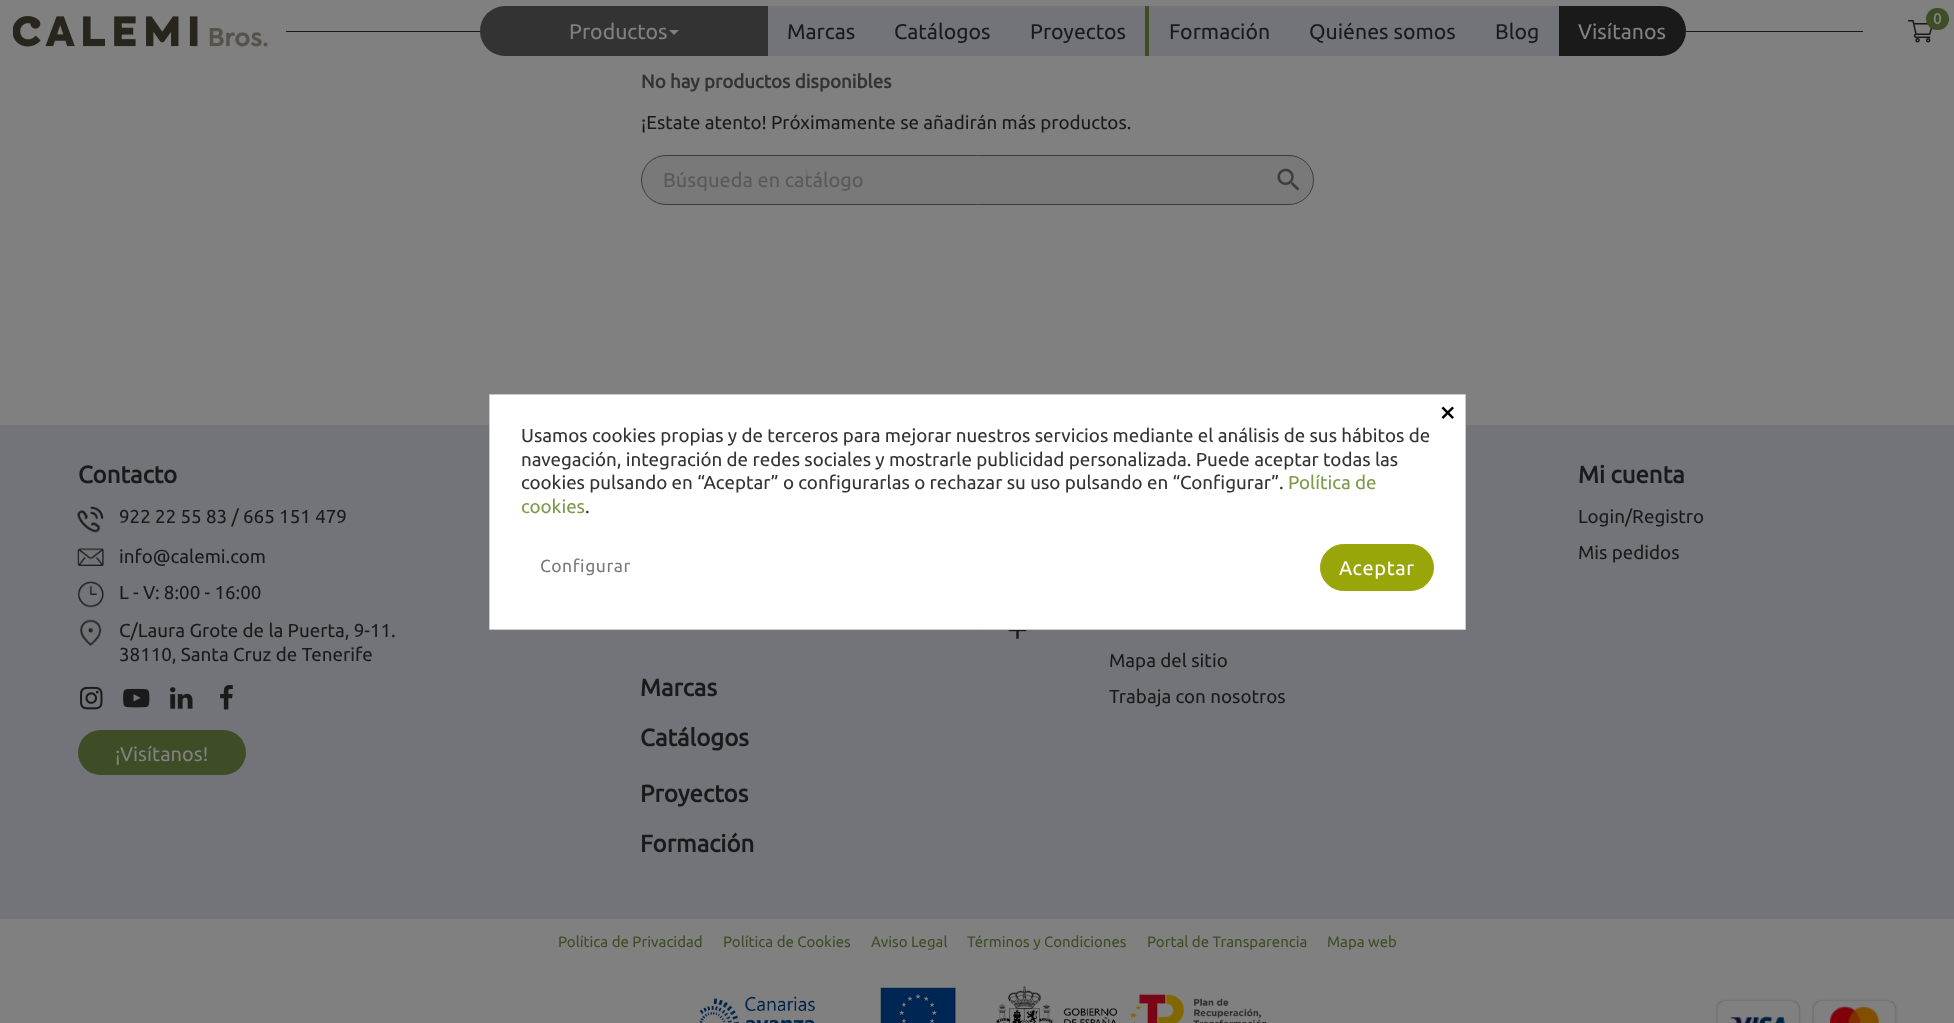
<!DOCTYPE html>
<meta charset="utf-8">
<style>body { margin: 0 } canvas { display: block }</style>
<canvas id="canvas" width="1954" height="1023"></canvas>
<img id="img1" src="img_01.png" hidden>
<img id="img2" src="img_02.png" hidden>
<img id="img3" src="img_03.png" hidden>
<img id="img4" src="img_04.png" hidden>
<img id="img5" src="img_05.png" hidden>
<img id="img6" src="img_06.png" hidden>
<img id="img7" src="img_07.png" hidden>
<img id="img8" src="img_08.png" hidden>
<img id="img9" src="img_09.png" hidden>
<img id="img10" src="img_10.png" hidden>
<img id="img11" src="img_11.png" hidden>
<img id="img12" src="img_12.png" hidden>
<img id="img13" src="img_13.png" hidden>
<img id="img14" src="img_14.png" hidden>
<img id="img15" src="img_15.png" hidden>
<script>
window.onload = function () {
	const canvas = document.getElementById("canvas");
	const ctx = canvas.getContext("2d");
	ctx.miterLimit = 4;
	ctx.fontKerning = "normal";
	function txt(s, x, y) {
		ctx.fillText(s, x, y);
	}
	function fill(x, y, w, h) {
		ctx.fillRect(x, y, w, h);
	}
	function round(x, y, w, h, r) {
		ctx.beginPath();
		ctx.roundRect(x, y, w, h, r);
		ctx.fill();
	}
	function img(id, x, y, w, h) {
		ctx.drawImage(document.getElementById(id), x, y, w, h);
	}

	ctx.fillStyle = "#808080";
	fill(0, 0, 1954, 1023);
	img("img1", 13, 16, 255, 31);
	ctx.fillStyle = "#1A1A1A";
	fill(286, 31, 1577, 1);
	ctx.fillStyle = "#727479";
	round(480, 6, 1206, 50, 25);
	ctx.fillStyle = "#333333";
	ctx.beginPath();
	ctx.roundRect(480, 6, 288, 50, [25, 0, 0, 25]);
	ctx.fill();
	ctx.fillStyle = "#808080";
	ctx.beginPath();
	ctx.moveTo(669, 30);
	ctx.lineTo(679, 30);
	ctx.lineTo(674, 35);
	ctx.closePath();
	ctx.fill();
	ctx.fillStyle = "#3E4D25";
	fill(1145, 6, 4, 50);
	ctx.fillStyle = "#1A1A1A";
	ctx.beginPath();
	ctx.roundRect(1559, 6, 127, 50, [0, 25, 25, 0]);
	ctx.fill();
	img("img2", 1908, 20, 25, 23);
	ctx.fillStyle = "#3E4D25";
	round(1926, 8, 23, 22, 11);
	ctx.fillStyle = "#797979";
	ctx.beginPath();
	ctx.roundRect(641.5, 155.5, 672, 49, 24.5);
	ctx.fill();
	ctx.strokeStyle = "#3D3D3D";
	ctx.stroke();
	img("img3", 1277, 168, 23, 23);
	ctx.fillStyle = "#727479";
	fill(0, 425, 1954, 494);
	img("img4", 77, 506, 27, 27);
	img("img5", 77, 548, 27, 18);
	img("img6", 77, 581, 27, 27);
	img("img7", 80, 619, 22, 27);
	img("img8", 80, 686, 23, 24);
	img("img9", 123, 688, 27, 20);
	img("img10", 170, 687, 23, 22);
	img("img11", 220, 685, 13, 25);
	ctx.fillStyle = "#3E4D25";
	round(78, 730, 168, 45, 22.5);
	img("img12", 1008, 630, 19, 9);
	img("img13", 699, 996, 116, 27);
	img("img14", 880, 986, 387, 37);
	img("img15", 1716, 999, 182, 24);
	ctx.fillStyle = "#FFFFFF";
	ctx.beginPath();
	ctx.rect(489.5, 394.5, 976, 235);
	ctx.fill();
	ctx.strokeStyle = "#CCCCCC";
	ctx.stroke();
	ctx.fillStyle = "#99A609";
	ctx.beginPath();
	ctx.roundRect(1320.5, 544.5, 113, 46, 23);
	ctx.fill();
	ctx.strokeStyle = "#99A609";
	ctx.stroke();
	ctx.font = "21.25px Ubuntu";
	ctx.fillStyle = "#808080";
	txt("Productos", 569, 39);
	ctx.fillStyle = "#1A1A1A";
	txt("Marcas", 787, 39);
	txt("Catálogos", 894, 39);
	txt("Proyectos", 1030, 39);
	txt("Formación", 1169, 39);
	txt("Quiénes somos", 1309, 39);
	txt("Blog", 1495, 39);
	ctx.fillStyle = "#808080";
	txt("Visítanos", 1578, 39);
	ctx.font = "bold 15px Ubuntu";
	txt("0", 1933, 24);
	ctx.font = "bold 18.75px Ubuntu";
	ctx.fillStyle = "#333333";
	txt("No hay productos disponibles", 641, 88);
	ctx.font = "18.75px Ubuntu";
	ctx.fillStyle = "#1A1A1A";
	txt("¡Estate atento! Próximamente se añadirán más productos.", 641, 129);
	ctx.font = "20px Ubuntu";
	ctx.fillStyle = "#595959";
	txt("Búsqueda en catálogo", 663, 187);
	ctx.font = "18.75px Ubuntu";
	ctx.fillStyle = "#707070";
	txt("›", 804, 179);
	ctx.font = "bold 24px Ubuntu";
	ctx.fillStyle = "#1A1A1A";
	txt("Contacto", 78, 483);
	ctx.font = "18.75px Ubuntu";
	txt("922 22 55 83 / 665 151 479", 119, 523);
	txt("info@calemi.com", 119, 563);
	txt("L - V: 8:00 - 16:00", 119, 599);
	txt("C/Laura Grote de la Puerta, 9-11.", 119, 637);
	txt("38110, Santa Cruz de Tenerife", 119, 661);
	ctx.font = "20px Ubuntu";
	ctx.fillStyle = "#808080";
	txt("¡Visítanos!", 115, 761);
	ctx.font = "bold 24px Ubuntu";
	ctx.fillStyle = "#1A1A1A";
	txt("Marcas", 640, 696);
	txt("Catálogos", 640, 746);
	txt("Proyectos", 640, 802);
	txt("Formación", 640, 852);
	ctx.font = "18.75px Ubuntu";
	txt("Mapa del sitio", 1109, 667);
	txt("Trabaja con nosotros", 1109, 703);
	ctx.font = "bold 24px Ubuntu";
	txt("Mi cuenta", 1578, 483);
	ctx.font = "18.75px Ubuntu";
	txt("Login/Registro", 1578, 523);
	txt("Mis pedidos", 1578, 559);
	ctx.font = "15px Ubuntu";
	ctx.fillStyle = "#3E4D25";
	txt("Política de Privacidad", 558, 947);
	txt("Política de Cookies", 723, 947);
	txt("Aviso Legal", 871, 947);
	txt("Términos y Condiciones", 967, 947);
	txt("Portal de Transparencia", 1147, 947);
	txt("Mapa web", 1327, 947);
	ctx.letterSpacing = "0.6px";
	ctx.font = "31px Ubuntu";
	ctx.fillStyle = "#000000";
	txt("×", 1439, 422);
	ctx.letterSpacing = "0px";
	ctx.font = "18.75px Ubuntu";
	ctx.fillStyle = "#333333";
	txt("Usamos cookies propias y de terceros para mejorar nuestros servicios mediante el análisis de sus hábitos de", 521, 442);
	txt("navegación, integración de redes sociales y mostrarle publicidad personalizada. Puede aceptar todas las", 521, 466);
	txt("cookies pulsando en “Aceptar” o configurarlas o rechazar su uso pulsando en “Configurar”.", 521, 489);
	ctx.fillStyle = "#7B9A4A";
	txt("Política de", 1288, 489);
	txt("cookies", 521, 513);
	ctx.fillStyle = "#333333";
	txt(".", 585, 513);
	ctx.letterSpacing = "0.6px";
	ctx.font = "17.5px Ubuntu";
	ctx.fillStyle = "#7A7A7A";
	txt("Configurar", 540, 572);
	ctx.font = "20px Ubuntu";
	ctx.fillStyle = "#FFFFFF";
	txt("Aceptar", 1339, 575);
};
</script>
